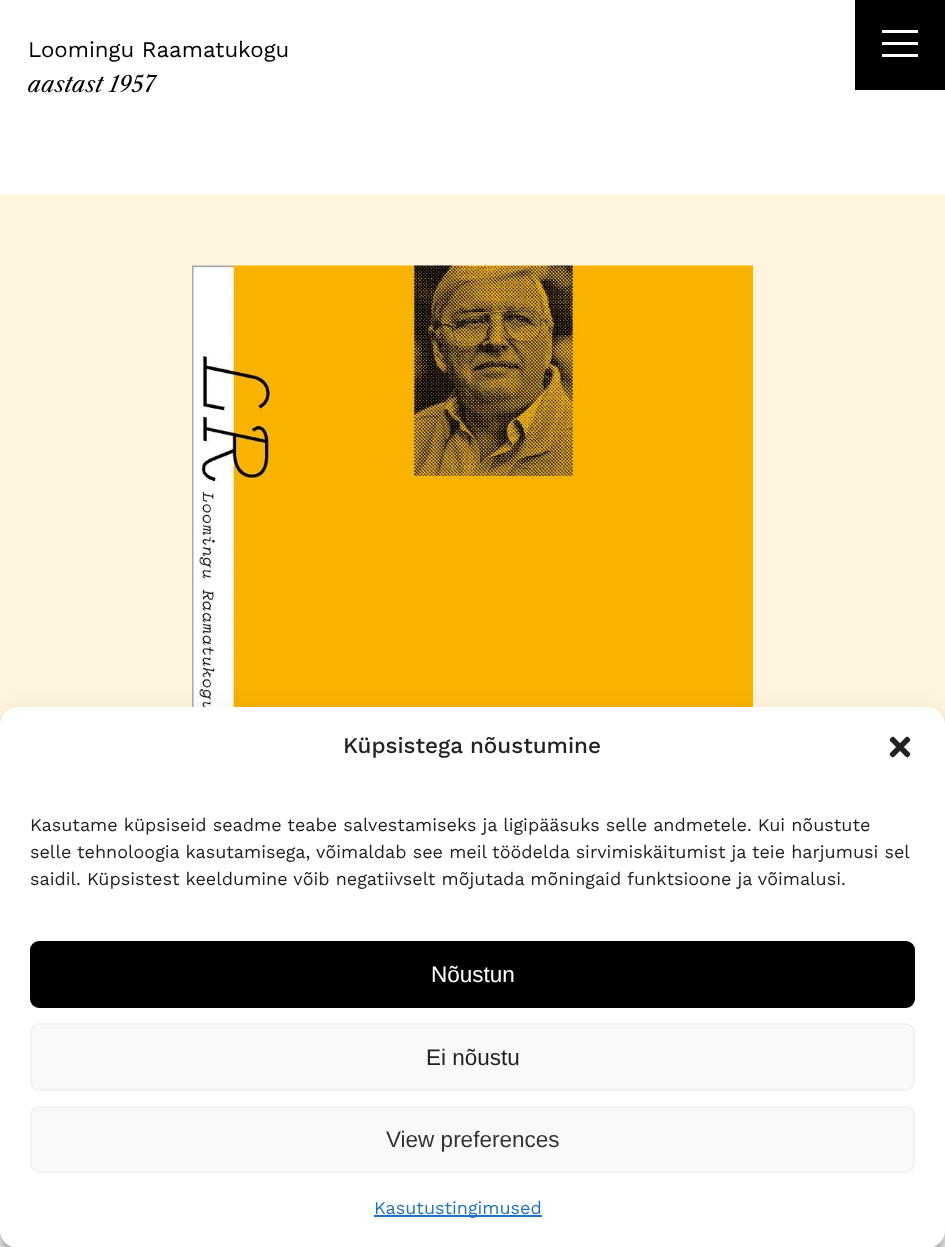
<!DOCTYPE html>
<meta charset="utf-8">
<style>body { margin: 0 } canvas { display: block }</style>
<canvas id="canvas" width="945" height="1247"></canvas>
<img id="img1" src="img_01.png" hidden>
<img id="img2" src="img_02.png" hidden>
<script>
window.onload = function () {
	const canvas = document.getElementById("canvas");
	const ctx = canvas.getContext("2d");
	ctx.miterLimit = 4;
	ctx.fontKerning = "normal";
	function txt(s, x, y) {
		ctx.fillText(s, x, y);
	}
	function fill(x, y, w, h) {
		ctx.fillRect(x, y, w, h);
	}
	function round(x, y, w, h, r) {
		ctx.beginPath();
		ctx.roundRect(x, y, w, h, r);
		ctx.fill();
	}
	function img(id, x, y, w, h) {
		ctx.drawImage(document.getElementById(id), x, y, w, h);
	}

	ctx.fillStyle = "#FFFFFF";
	fill(0, 0, 945, 1247);
	ctx.fillStyle = "#FFF5DD";
	fill(0, 194, 945, 531);
	img("img1", 192, 265, 561, 442);
	ctx.fillStyle = "#000000";
	fill(855, 0, 90, 90);
	ctx.fillStyle = "#FFFFFF";
	fill(882, 30, 36, 3);
	fill(882, 42, 36, 3);
	fill(882, 54, 36, 3);
	ctx.fillStyle = "rgba(0, 0, 0, 0.23)";
	ctx.filter = "blur(4.5px)";
	ctx.beginPath();
	ctx.roundRect(0, 716, 945, 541, 18);
	ctx.fill();
	ctx.filter = "none";
	ctx.fillStyle = "rgba(0, 0, 0, 0.19)";
	ctx.filter = "blur(15px)";
	ctx.beginPath();
	ctx.roundRect(0, 722, 945, 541, 18);
	ctx.fill();
	ctx.filter = "none";
	ctx.fillStyle = "#FFFFFF";
	round(0, 707, 945, 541, 18);
	img("img2", 889, 736, 22, 22);
	ctx.fillStyle = "#000000";
	ctx.beginPath();
	ctx.roundRect(31, 942, 883, 65, 8);
	ctx.fill();
	ctx.strokeStyle = "#000000";
	ctx.lineWidth = 2;
	ctx.stroke();
	ctx.fillStyle = "#F9F9F9";
	ctx.beginPath();
	ctx.roundRect(31, 1024, 883, 66, 8);
	ctx.fill();
	ctx.strokeStyle = "#F2F2F2";
	ctx.stroke();
	ctx.beginPath();
	ctx.roundRect(31, 1107, 883, 65, 8);
	ctx.fill();
	ctx.stroke();
	ctx.fillStyle = "#1E73BE";
	fill(374, 1215, 168, 2);
	ctx.font = "22.25px Work Sans";
	ctx.fillStyle = "#000000";
	txt("Loomingu Raamatukogu", 28, 57);
	ctx.font = "italic 22.25px Libre Caslon Text";
	txt("aastast 1957", 28, 92);
	ctx.font = "500 22.5px Work Sans";
	ctx.fillStyle = "#222222";
	txt("Küpsistega nõustumine", 343, 753);
	ctx.font = "18px Work Sans";
	txt("Kasutame küpsiseid seadme teabe salvestamiseks ja ligipääsuks selle andmetele. Kui nõustute", 30, 831);
	txt("selle tehnoloogia kasutamisega, võimaldab see meil töödelda sirvimiskäitumist ja teie harjumusi sel", 30, 858);
	txt("saidil. Küpsistest keeldumine võib negatiivselt mõjutada mõningaid funktsioone ja võimalusi.", 30, 885);
	ctx.font = "22.5px Liberation Sans";
	ctx.fillStyle = "#FFFFFF";
	txt("Nõustun", 431, 982);
	ctx.fillStyle = "#222222";
	txt("Ei nõustu", 426, 1065);
	ctx.fillStyle = "#333333";
	txt("View preferences", 386, 1147);
	ctx.font = "18px Work Sans";
	ctx.fillStyle = "#1E73BE";
	txt("Kasutustingimused", 374, 1214);
};
</script>
